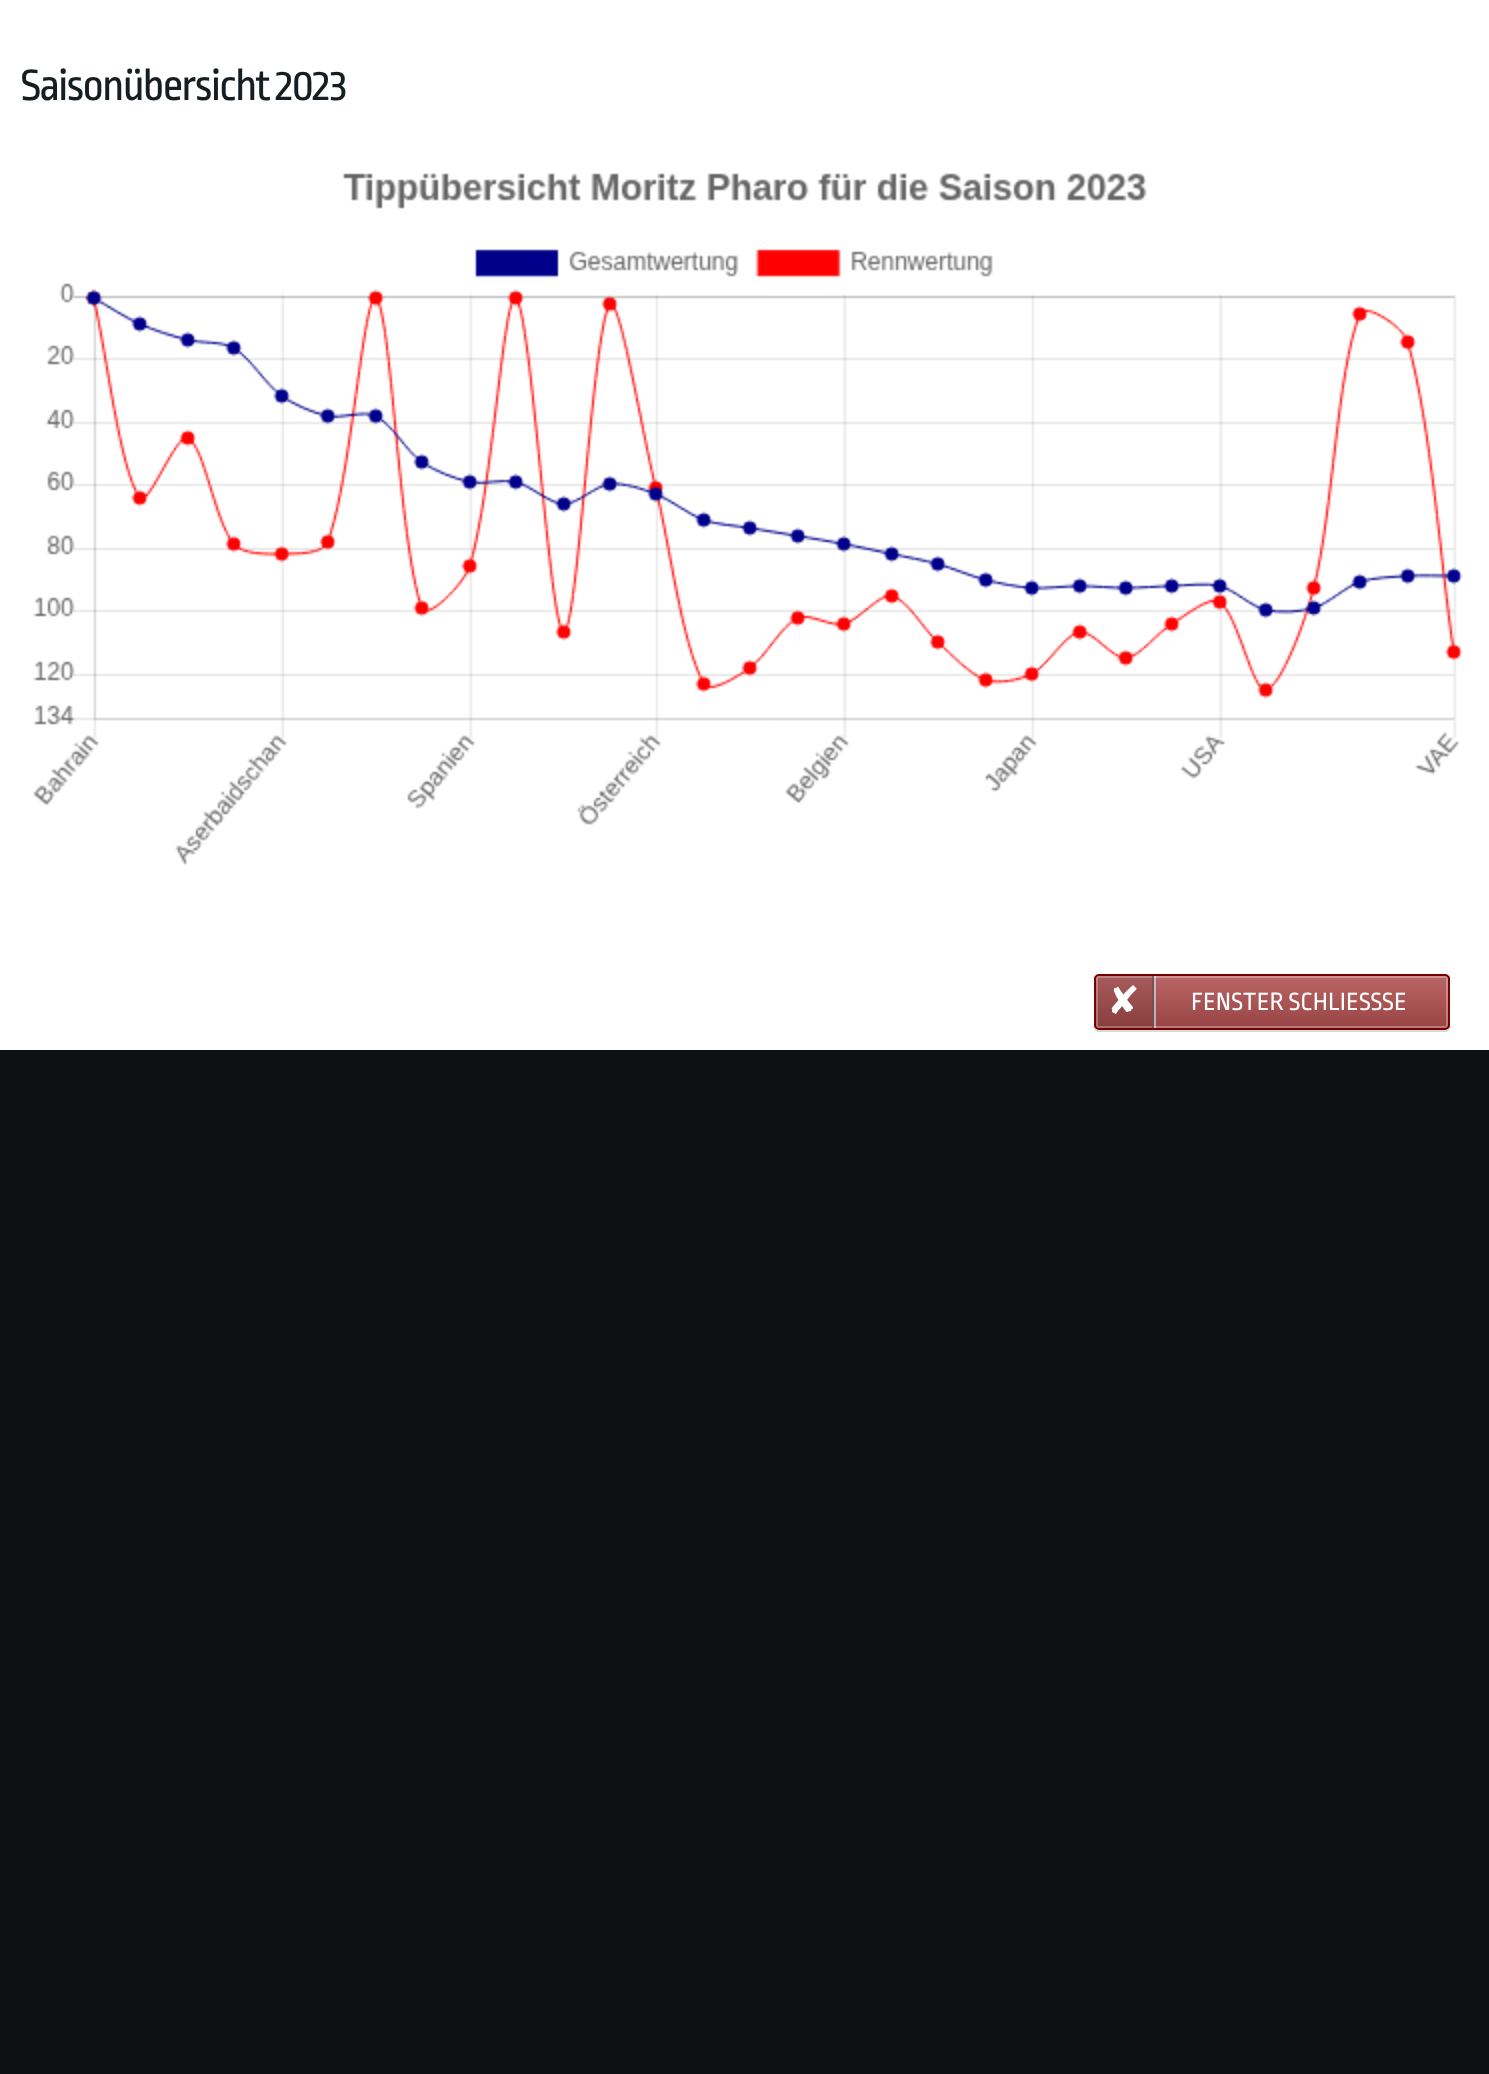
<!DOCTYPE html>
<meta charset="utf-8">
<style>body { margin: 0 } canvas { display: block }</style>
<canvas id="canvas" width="1489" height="2074"></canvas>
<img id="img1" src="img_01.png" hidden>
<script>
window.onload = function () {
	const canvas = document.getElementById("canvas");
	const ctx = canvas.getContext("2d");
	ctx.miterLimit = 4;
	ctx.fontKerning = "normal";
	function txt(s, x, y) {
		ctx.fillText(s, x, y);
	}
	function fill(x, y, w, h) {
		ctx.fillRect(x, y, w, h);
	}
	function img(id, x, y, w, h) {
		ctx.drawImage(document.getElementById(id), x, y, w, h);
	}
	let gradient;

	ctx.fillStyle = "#0D1113";
	fill(0, 0, 1489, 2074);
	ctx.fillStyle = "#FFFFFF";
	fill(0, 0, 1489, 1050);
	img("img1", 33, 173, 1430, 692);
	ctx.fillStyle = "#D9D9D9";
	ctx.beginPath();
	ctx.moveTo(1094, 1025);
	ctx.lineTo(1094, 1027);
	ctx.bezierCurveTo(1094, 1030, 1096, 1032, 1099, 1032);
	ctx.lineTo(1445, 1032);
	ctx.bezierCurveTo(1448, 1032, 1450, 1030, 1450, 1027);
	ctx.lineTo(1450, 1025);
	ctx.bezierCurveTo(1450, 1028, 1448, 1030, 1445, 1030);
	ctx.lineTo(1099, 1030);
	ctx.bezierCurveTo(1096, 1030, 1094, 1028, 1094, 1025);
	ctx.closePath();
	ctx.fill();
	ctx.save();
	ctx.beginPath();
	ctx.roundRect(1094, 974, 356, 56, 5);
	ctx.clip();
	gradient = ctx.createLinearGradient(1272, 976, 1272, 1028);
	gradient.addColorStop(0, "#BB6666");
	gradient.addColorStop(1, "#994444");
	ctx.fillStyle = gradient;
	fill(1094, 976, 356, 52);
	ctx.restore();
	ctx.beginPath();
	ctx.roundRect(1097, 977, 350, 50, 2);
	ctx.strokeStyle = "rgba(255, 255, 255, 0.3)";
	ctx.lineWidth = 2;
	ctx.stroke();
	ctx.beginPath();
	ctx.roundRect(1095, 975, 354, 54, 4);
	ctx.strokeStyle = "#770000";
	ctx.stroke();
	ctx.fillStyle = "rgba(255, 255, 255, 0.5)";
	fill(1152, 976, 4, 52);
	ctx.fillStyle = "rgba(0, 0, 0, 0.5)";
	fill(1152, 976, 2, 52);
	ctx.fillStyle = "rgba(0, 0, 0, 0.1)";
	ctx.beginPath();
	ctx.roundRect(1096, 976, 56, 52, [6, 0, 0, 6]);
	ctx.fill();
	ctx.letterSpacing = "-2px";
	ctx.font = "46.25px Ropa Sans";
	ctx.fillStyle = "#161E21";
	txt("Saisonübersicht 2023", 20, 100);
	ctx.letterSpacing = "0px";
	ctx.font = "39px DejaVu Sans";
	ctx.fillStyle = "#FFFFFF";
	txt("✘", 1107, 1014);
	ctx.font = "26.25px Ropa Sans";
	txt("FENSTER SCHLIESSSE", 1191, 1010);
};
</script>
